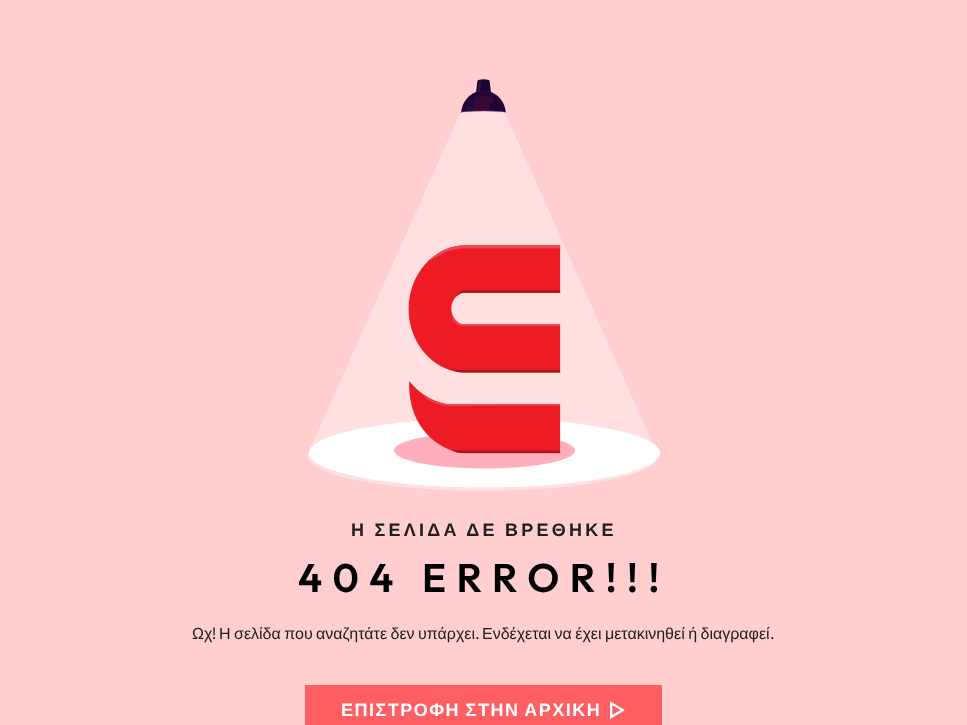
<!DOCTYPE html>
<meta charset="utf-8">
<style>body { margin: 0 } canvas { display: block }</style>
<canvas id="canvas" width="967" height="725"></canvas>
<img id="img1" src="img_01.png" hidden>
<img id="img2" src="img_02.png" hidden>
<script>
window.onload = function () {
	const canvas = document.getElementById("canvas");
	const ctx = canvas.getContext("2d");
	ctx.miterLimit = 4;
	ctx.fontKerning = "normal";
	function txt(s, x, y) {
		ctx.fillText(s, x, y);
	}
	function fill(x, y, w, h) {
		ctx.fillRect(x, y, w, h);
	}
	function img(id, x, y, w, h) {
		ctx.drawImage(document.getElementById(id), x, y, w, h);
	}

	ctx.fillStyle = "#FFCECF";
	fill(0, 0, 967, 725);
	img("img1", 307, 79, 353, 412);
	ctx.fillStyle = "#FF5E62";
	fill(305, 685, 357, 40);
	img("img2", 610, 701, 15, 18);
	ctx.letterSpacing = "3.25px";
	ctx.wordSpacing = "-1px";
	ctx.font = "bold 18px Liberation Sans";
	ctx.fillStyle = "#202020";
	txt("Η ΣΕΛΙΔΑ ΔΕ ΒΡΕΘΗΚΕ", 351, 536);
	ctx.letterSpacing = "10.4px";
	ctx.wordSpacing = "0px";
	ctx.font = "600 40px Outfit";
	ctx.fillStyle = "#000000";
	txt("404 ERROR!!!", 298, 592);
	ctx.letterSpacing = "0px";
	ctx.font = "16px Liberation Sans";
	ctx.fillStyle = "#202020";
	txt("Ωχ", 192, 639);
	ctx.font = "16px Outfit";
	txt("!", 212, 639);
	ctx.wordSpacing = "-1px";
	ctx.font = "16px Liberation Sans";
	txt("Η σελίδα που αναζητάτε δεν υπάρχει", 219, 639);
	ctx.wordSpacing = "0px";
	ctx.font = "16px Outfit";
	txt(".", 475, 639);
	ctx.wordSpacing = "-1px";
	ctx.font = "16px Liberation Sans";
	txt("Ενδέχεται να έχει μετακινηθεί ή διαγραφεί", 482, 639);
	ctx.wordSpacing = "0px";
	ctx.font = "16px Outfit";
	txt(".", 770, 639);
	ctx.letterSpacing = "1.5px";
	ctx.wordSpacing = "-1px";
	ctx.font = "bold 18px Liberation Sans";
	ctx.fillStyle = "#FFFFFF";
	txt("ΕΠΙΣΤΡΟΦΗ ΣΤΗΝ ΑΡΧΙΚΗ", 341, 716);
};
</script>
